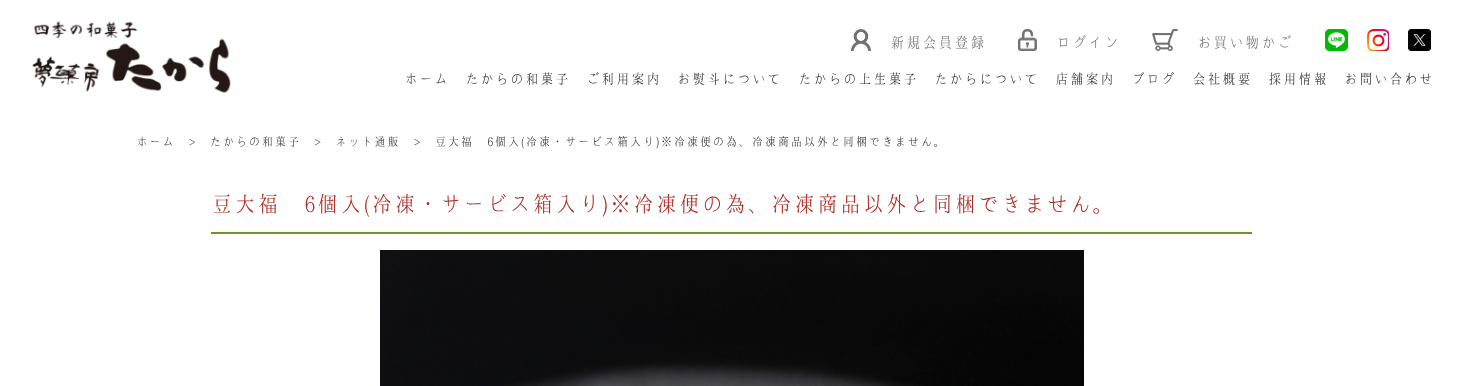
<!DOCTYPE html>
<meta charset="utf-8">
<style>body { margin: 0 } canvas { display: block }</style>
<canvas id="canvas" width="1463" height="386"></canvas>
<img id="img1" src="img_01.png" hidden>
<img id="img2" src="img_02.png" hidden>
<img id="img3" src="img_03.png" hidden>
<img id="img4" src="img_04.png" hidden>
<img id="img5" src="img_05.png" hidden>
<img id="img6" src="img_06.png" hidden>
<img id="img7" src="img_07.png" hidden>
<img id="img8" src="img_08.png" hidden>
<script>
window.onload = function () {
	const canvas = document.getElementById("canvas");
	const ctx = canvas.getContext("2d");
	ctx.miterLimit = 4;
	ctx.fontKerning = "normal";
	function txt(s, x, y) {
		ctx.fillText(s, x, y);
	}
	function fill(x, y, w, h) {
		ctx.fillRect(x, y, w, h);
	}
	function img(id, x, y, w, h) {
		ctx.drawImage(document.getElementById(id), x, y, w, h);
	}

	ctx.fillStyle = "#FFFFFF";
	fill(0, 0, 1463, 386);
	img("img1", 31, 21, 200, 73);
	img("img2", 851, 29, 20, 22);
	img("img3", 1018, 29, 19, 22);
	img("img4", 1152, 29, 26, 22);
	img("img5", 1325, 29, 23, 22);
	img("img6", 1367, 29, 22, 22);
	img("img7", 1408, 29, 23, 22);
	ctx.fillStyle = "#73912F";
	fill(211, 232, 1041, 2);
	img("img8", 380, 250, 704, 136);
	ctx.letterSpacing = "1px";
	ctx.font = "15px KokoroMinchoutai";
	ctx.fillStyle = "#727171";
	txt("新規会員登録", 890, 48);
	txt("ログイン", 1056, 48);
	txt("お買い物かご", 1197, 48);
	ctx.font = "14px KokoroMinchoutai";
	ctx.fillStyle = "#333333";
	txt("ホーム", 404, 84);
	txt("たからの和菓子", 465, 84);
	txt("ご利用案内", 586, 84);
	txt("お熨斗について", 677, 84);
	txt("たからの上生菓子", 798, 84);
	txt("たからについて", 934, 84);
	txt("店舗案内", 1055, 84);
	txt("ブログ", 1131, 84);
	txt("会社概要", 1192, 84);
	txt("採用情報", 1268, 84);
	txt("お問い合わせ", 1344, 84);
	ctx.font = "12px KokoroMinchoutai";
	txt("ホーム > たからの和菓子 > ネット通販 > 豆大福 6個入(冷凍・サービス箱入り)※冷凍便の為、冷凍商品以外と同梱できません。", 136, 146);
	ctx.font = "22px KokoroMinchoutai";
	ctx.fillStyle = "#B12C22";
	txt("豆大福 6個入(冷凍・サービス箱入り)※冷凍便の為、冷凍商品以外と同梱できません。", 211, 212);
};
</script>
